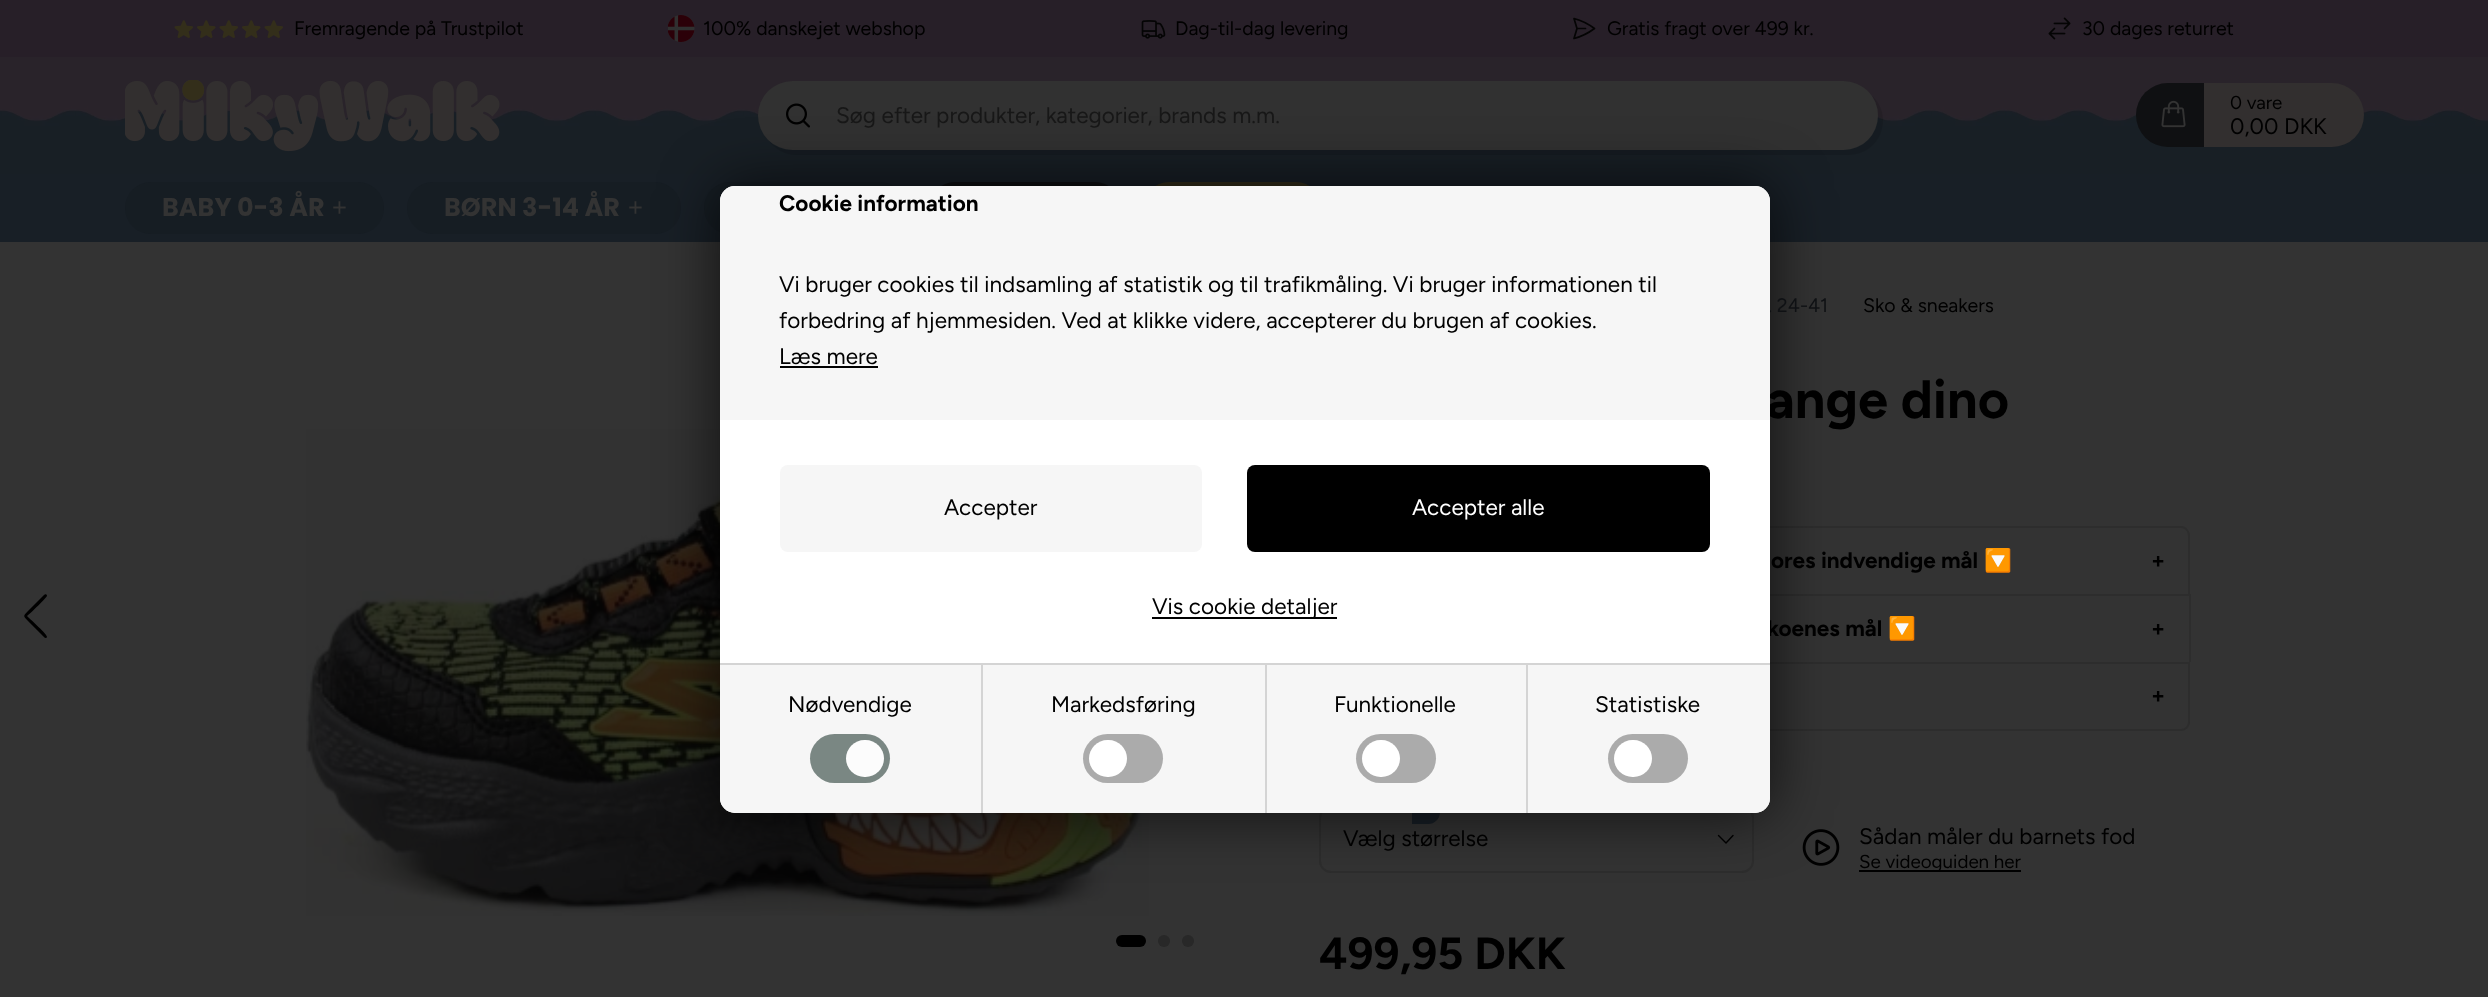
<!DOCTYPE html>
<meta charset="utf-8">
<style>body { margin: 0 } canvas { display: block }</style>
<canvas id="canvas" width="2488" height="997"></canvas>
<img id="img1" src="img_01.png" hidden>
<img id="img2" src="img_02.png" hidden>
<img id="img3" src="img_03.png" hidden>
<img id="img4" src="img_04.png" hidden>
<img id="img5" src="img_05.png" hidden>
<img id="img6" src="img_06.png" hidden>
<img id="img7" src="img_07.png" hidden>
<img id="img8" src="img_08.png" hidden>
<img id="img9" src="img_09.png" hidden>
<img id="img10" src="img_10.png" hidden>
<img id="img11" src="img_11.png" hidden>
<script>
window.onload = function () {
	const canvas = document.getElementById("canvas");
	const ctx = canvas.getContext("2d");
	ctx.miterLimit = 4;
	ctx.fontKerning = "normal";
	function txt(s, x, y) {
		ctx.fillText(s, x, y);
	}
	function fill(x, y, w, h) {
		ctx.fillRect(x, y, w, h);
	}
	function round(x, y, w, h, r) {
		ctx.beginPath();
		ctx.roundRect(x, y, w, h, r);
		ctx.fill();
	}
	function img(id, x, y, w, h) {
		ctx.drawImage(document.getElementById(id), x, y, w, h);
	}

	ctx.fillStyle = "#333333";
	fill(0, 0, 2488, 997);
	ctx.fillStyle = "#271F28";
	fill(0, 0, 2488, 57);
	img("img1", 174, 20, 19, 18);
	img("img2", 197, 20, 19, 18);
	img("img1", 219, 20, 19, 18);
	img("img2", 242, 20, 19, 18);
	img("img1", 264, 20, 19, 18);
	img("img3", 668, 15, 27, 27);
	img("img4", 1141, 20, 25, 19);
	ctx.beginPath();
	ctx.moveTo(1577, 28.5);
	ctx.lineTo(1574, 18.5);
	ctx.bezierCurveTo(1581.5, 20.5, 1588.5, 24, 1594.5, 28.5);
	ctx.bezierCurveTo(1588.5, 33, 1581.5, 36.5, 1574, 38.5);
	ctx.closePath();
	ctx.moveTo(1577, 28.5);
	ctx.lineTo(1585.5, 28.5);
	ctx.strokeStyle = "#040404";
	ctx.lineWidth = 1.7;
	ctx.lineCap = "round";
	ctx.lineJoin = "round";
	ctx.stroke();
	img("img5", 2048, 17, 23, 23);
	img("img6", 0, 57, 2488, 117);
	img("img7", 125, 80, 375, 72);
	ctx.fillStyle = "rgba(0, 0, 0, 0.1)";
	ctx.beginPath();
	ctx.moveTo(769, 141);
	ctx.bezierCurveTo(775, 149, 785, 155, 796, 155);
	ctx.lineTo(1848, 155);
	ctx.bezierCurveTo(1868, 155, 1883, 140, 1883, 120);
	ctx.bezierCurveTo(1883, 110, 1878, 100, 1870, 94);
	ctx.bezierCurveTo(1875, 100, 1878, 107, 1878, 116);
	ctx.bezierCurveTo(1878, 135, 1863, 150, 1844, 150);
	ctx.lineTo(792, 150);
	ctx.bezierCurveTo(783, 150, 775, 147, 769, 141);
	ctx.closePath();
	ctx.fill();
	ctx.fillStyle = "#313131";
	round(758, 81, 1120, 69, 34.5);
	img("img8", 786, 103, 24, 25);
	ctx.fillStyle = "#0F1012";
	ctx.beginPath();
	ctx.roundRect(2136, 83, 68, 64, [32, 0, 0, 32]);
	ctx.fill();
	img("img9", 2161, 100, 25, 28);
	ctx.fillStyle = "#322F2F";
	ctx.beginPath();
	ctx.roundRect(2204, 83, 160, 64, [0, 32, 32, 0]);
	ctx.fill();
	ctx.fillStyle = "#181F26";
	fill(0, 174, 2488, 68);
	ctx.fillStyle = "#161D23";
	round(125, 182, 259, 52, 26);
	round(407, 182, 274, 52, 26);
	round(704, 182, 202, 52, 26);
	ctx.fillStyle = "#0F1012";
	round(929, 182, 192, 52, 26);
	ctx.fillStyle = "#332E1A";
	round(1143, 182, 179, 52, 26);
	img("img10", 306, 429, 843, 487);
	ctx.fillStyle = "#2D2D2D";
	ctx.beginPath();
	ctx.moveTo(1328, 526);
	ctx.lineTo(2181, 526);
	ctx.bezierCurveTo(2186, 526, 2190, 531, 2190, 536);
	ctx.lineTo(2190, 594);
	ctx.lineTo(1318, 594);
	ctx.lineTo(1318, 536);
	ctx.bezierCurveTo(1318, 531, 1323, 526, 1328, 526);
	ctx.closePath();
	ctx.moveTo(1328, 528);
	ctx.lineTo(2181, 528);
	ctx.bezierCurveTo(2185, 528, 2188, 531, 2188, 536);
	ctx.lineTo(2188, 594);
	ctx.lineTo(1320, 594);
	ctx.lineTo(1320, 536);
	ctx.bezierCurveTo(1320, 531, 1323, 528, 1328, 528);
	ctx.closePath();
	ctx.fill("evenodd");
	fill(1770, 594, 420, 2);
	ctx.beginPath();
	ctx.roundRect(1320, 663, 869, 67, [0, 0, 8, 8]);
	ctx.strokeStyle = "#2D2D2D";
	ctx.lineWidth = 2;
	ctx.lineJoin = "miter";
	ctx.stroke();
	ctx.beginPath();
	ctx.moveTo(1733, 835.5);
	ctx.lineTo(1726, 843);
	ctx.lineTo(1718.5, 835.5);
	ctx.strokeStyle = "#000000";
	ctx.lineWidth = 1.4;
	ctx.lineJoin = "round";
	ctx.stroke();
	ctx.beginPath();
	ctx.roundRect(1320, 807, 433, 65, 11);
	ctx.strokeStyle = "#2D2D2D";
	ctx.lineWidth = 2;
	ctx.lineJoin = "miter";
	ctx.stroke();
	ctx.fillStyle = "#181F26";
	ctx.beginPath();
	ctx.roundRect(1412, 800, 28, 24, [0, 12, 12, 0]);
	ctx.fill();
	img("img11", 1802, 829, 38, 37);
	ctx.fillStyle = "#000000";
	fill(1859, 870, 162, 2);
	ctx.fillStyle = "rgba(0, 0, 0, 0.7)";
	ctx.filter = "blur(30px)";
	ctx.beginPath();
	ctx.roundRect(720, 186, 1050, 627, 15);
	ctx.fill();
	ctx.filter = "none";
	ctx.fillStyle = "#000000";
	ctx.beginPath();
	ctx.moveTo(44, 595);
	ctx.bezierCurveTo(45, 594, 47, 594, 47, 596);
	ctx.bezierCurveTo(47, 597, 30, 614, 27, 616);
	ctx.bezierCurveTo(30, 619, 48, 635, 47, 637);
	ctx.bezierCurveTo(46, 640, 43, 636, 41, 634);
	ctx.lineTo(28, 621);
	ctx.bezierCurveTo(23, 616, 23, 616, 28, 611);
	ctx.closePath();
	ctx.fill();
	round(1116, 935, 30, 12, 6);
	ctx.fillStyle = "#282828";
	ctx.beginPath();
	ctx.arc(1164, 941, 6, 0, Math.PI * 2);
	ctx.fill();
	ctx.beginPath();
	ctx.arc(1188, 941, 6, 0, Math.PI * 2);
	ctx.fill();
	ctx.fillStyle = "#2D2D2D";
	fill(2189, 594, 2, 68);
	ctx.font = "300 19.5px 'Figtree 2'";
	ctx.fillStyle = "#000000";
	txt("Fremragende på Trustpilot", 294, 35);
	txt("100% danskejet webshop", 703, 35);
	txt("Dag-til-dag levering", 1175, 35);
	txt("Gratis fragt over 499 kr.", 1607, 35);
	txt("30 dages returret", 2082, 35);
	ctx.font = "300 22.5px 'Figtree 2'";
	ctx.fillStyle = "#171717";
	txt("Søg efter produkter, kategorier, brands m.m.", 836, 123);
	ctx.font = "300 18.75px 'Figtree 2'";
	ctx.fillStyle = "#000000";
	txt("0 vare", 2230, 109);
	ctx.font = "300 22.5px 'Figtree 2'";
	txt("0,00 DKK", 2230, 134);
	ctx.font = "bold 25.5px Poppins";
	ctx.fillStyle = "#333333";
	txt("BABY 0-3 ÅR", 162, 216);
	ctx.font = "25.5px Liberation Sans";
	txt("+", 332, 216);
	ctx.font = "bold 25.5px Poppins";
	txt("BØRN 3-14 ÅR", 444, 216);
	ctx.font = "25.5px Liberation Sans";
	txt("+", 628, 216);
	ctx.font = "300 19.5px 'Figtree 2'";
	ctx.fillStyle = "#0F1114";
	txt(". 24-41", 1768, 312);
	ctx.fillStyle = "#000000";
	txt("Sko & sneakers", 1863, 312);
	ctx.font = "300 54px Figtree";
	txt("ange dino", 1766, 418);
	ctx.font = "300 22.5px Figtree";
	txt("ores indvendige mål", 1771, 568);
	ctx.font = "bold 22.5px Noto Color Emoji";
	txt("🔽", 1984, 568);
	ctx.font = "300 22.5px Figtree";
	txt("+", 2151, 568);
	txt("koenes mål", 1767, 636);
	ctx.fillStyle = "#FFFFFF";
	round(720, 186, 1050, 627, 15);
	ctx.fillStyle = "#000000";
	round(1247, 465, 463, 87, 8);
	ctx.font = "300 22.5px 'Figtree 2'";
	ctx.fillStyle = "#FFFFFF";
	txt("Accepter alle", 1412, 515);
	ctx.fillStyle = "#F6F6F6";
	round(780, 465, 422, 87, 8);
	ctx.fillStyle = "#000000";
	txt("Accepter", 944, 515);
	ctx.fillStyle = "#F6F6F6";
	ctx.beginPath();
	ctx.roundRect(720, 663, 1050, 150, [0, 0, 15, 15]);
	ctx.fill();
	ctx.fillStyle = "#7A8783";
	round(810, 734, 80, 49, 24.5);
	ctx.fillStyle = "#FCFCFC";
	round(846, 740, 38, 37, 18.5);
	ctx.fillStyle = "#000000";
	fill(1152, 617, 185, 2);
	txt("Vis cookie detaljer", 1152, 614);
	ctx.fillStyle = "#ABABAB";
	round(1608, 734, 80, 49, 24.5);
	ctx.fillStyle = "#FFFFFF";
	round(1614, 740, 38, 37, 18.5);
	ctx.fillStyle = "#000000";
	txt("Statistiske", 1595, 712);
	ctx.fillStyle = "#ABABAB";
	round(1356, 734, 80, 49, 24.5);
	ctx.fillStyle = "#FFFFFF";
	round(1362, 740, 38, 37, 18.5);
	ctx.fillStyle = "#000000";
	txt("Funktionelle", 1334, 712);
	ctx.fillStyle = "#D4D4D4";
	fill(1526, 665, 2, 148);
	ctx.fillStyle = "#ABABAB";
	round(1083, 734, 80, 49, 24.5);
	ctx.fillStyle = "#FFFFFF";
	round(1089, 740, 38, 37, 18.5);
	ctx.fillStyle = "#000000";
	txt("Markedsføring", 1051, 712);
	ctx.fillStyle = "#D4D4D4";
	fill(1265, 665, 2, 148);
	ctx.fillStyle = "#000000";
	txt("Nødvendige", 788, 712);
	ctx.fillStyle = "#D4D4D4";
	fill(981, 665, 2, 148);
	fill(720, 663, 1050, 2);
	ctx.fillStyle = "#F6F6F6";
	fill(720, 267, 1050, 153);
	ctx.fillStyle = "#000000";
	txt("Læs mere", 779, 364);
	fill(780, 366, 98, 2);
	txt("forbedring af hjemmesiden. Ved at klikke videre, accepterer du brugen af cookies.", 779, 328);
	txt("Vi bruger cookies til indsamling af statistik og til trafikmåling. Vi bruger informationen til", 779, 292);
	ctx.fillStyle = "#F6F6F6";
	ctx.beginPath();
	ctx.roundRect(720, 186, 1050, 81, [15, 15, 0, 0]);
	ctx.fill();
	ctx.font = "300 22.5px Figtree";
	ctx.fillStyle = "#000000";
	txt("Cookie information", 779, 211);
	ctx.font = "bold 22.5px Noto Color Emoji";
	txt("🔽", 1888, 636);
	ctx.font = "300 22.5px Figtree";
	txt("+", 2151, 636);
	txt("+", 2151, 703);
	ctx.font = "300 22.5px 'Figtree 2'";
	txt("Vælg størrelse", 1343, 846);
	txt("Sådan måler du barnets fod", 1859, 844);
	ctx.font = "300 18.75px 'Figtree 2'";
	txt("Se videoguiden her", 1859, 868);
	ctx.font = "300 45px Figtree";
	txt("499,95 DKK", 1319, 969);
};
</script>
